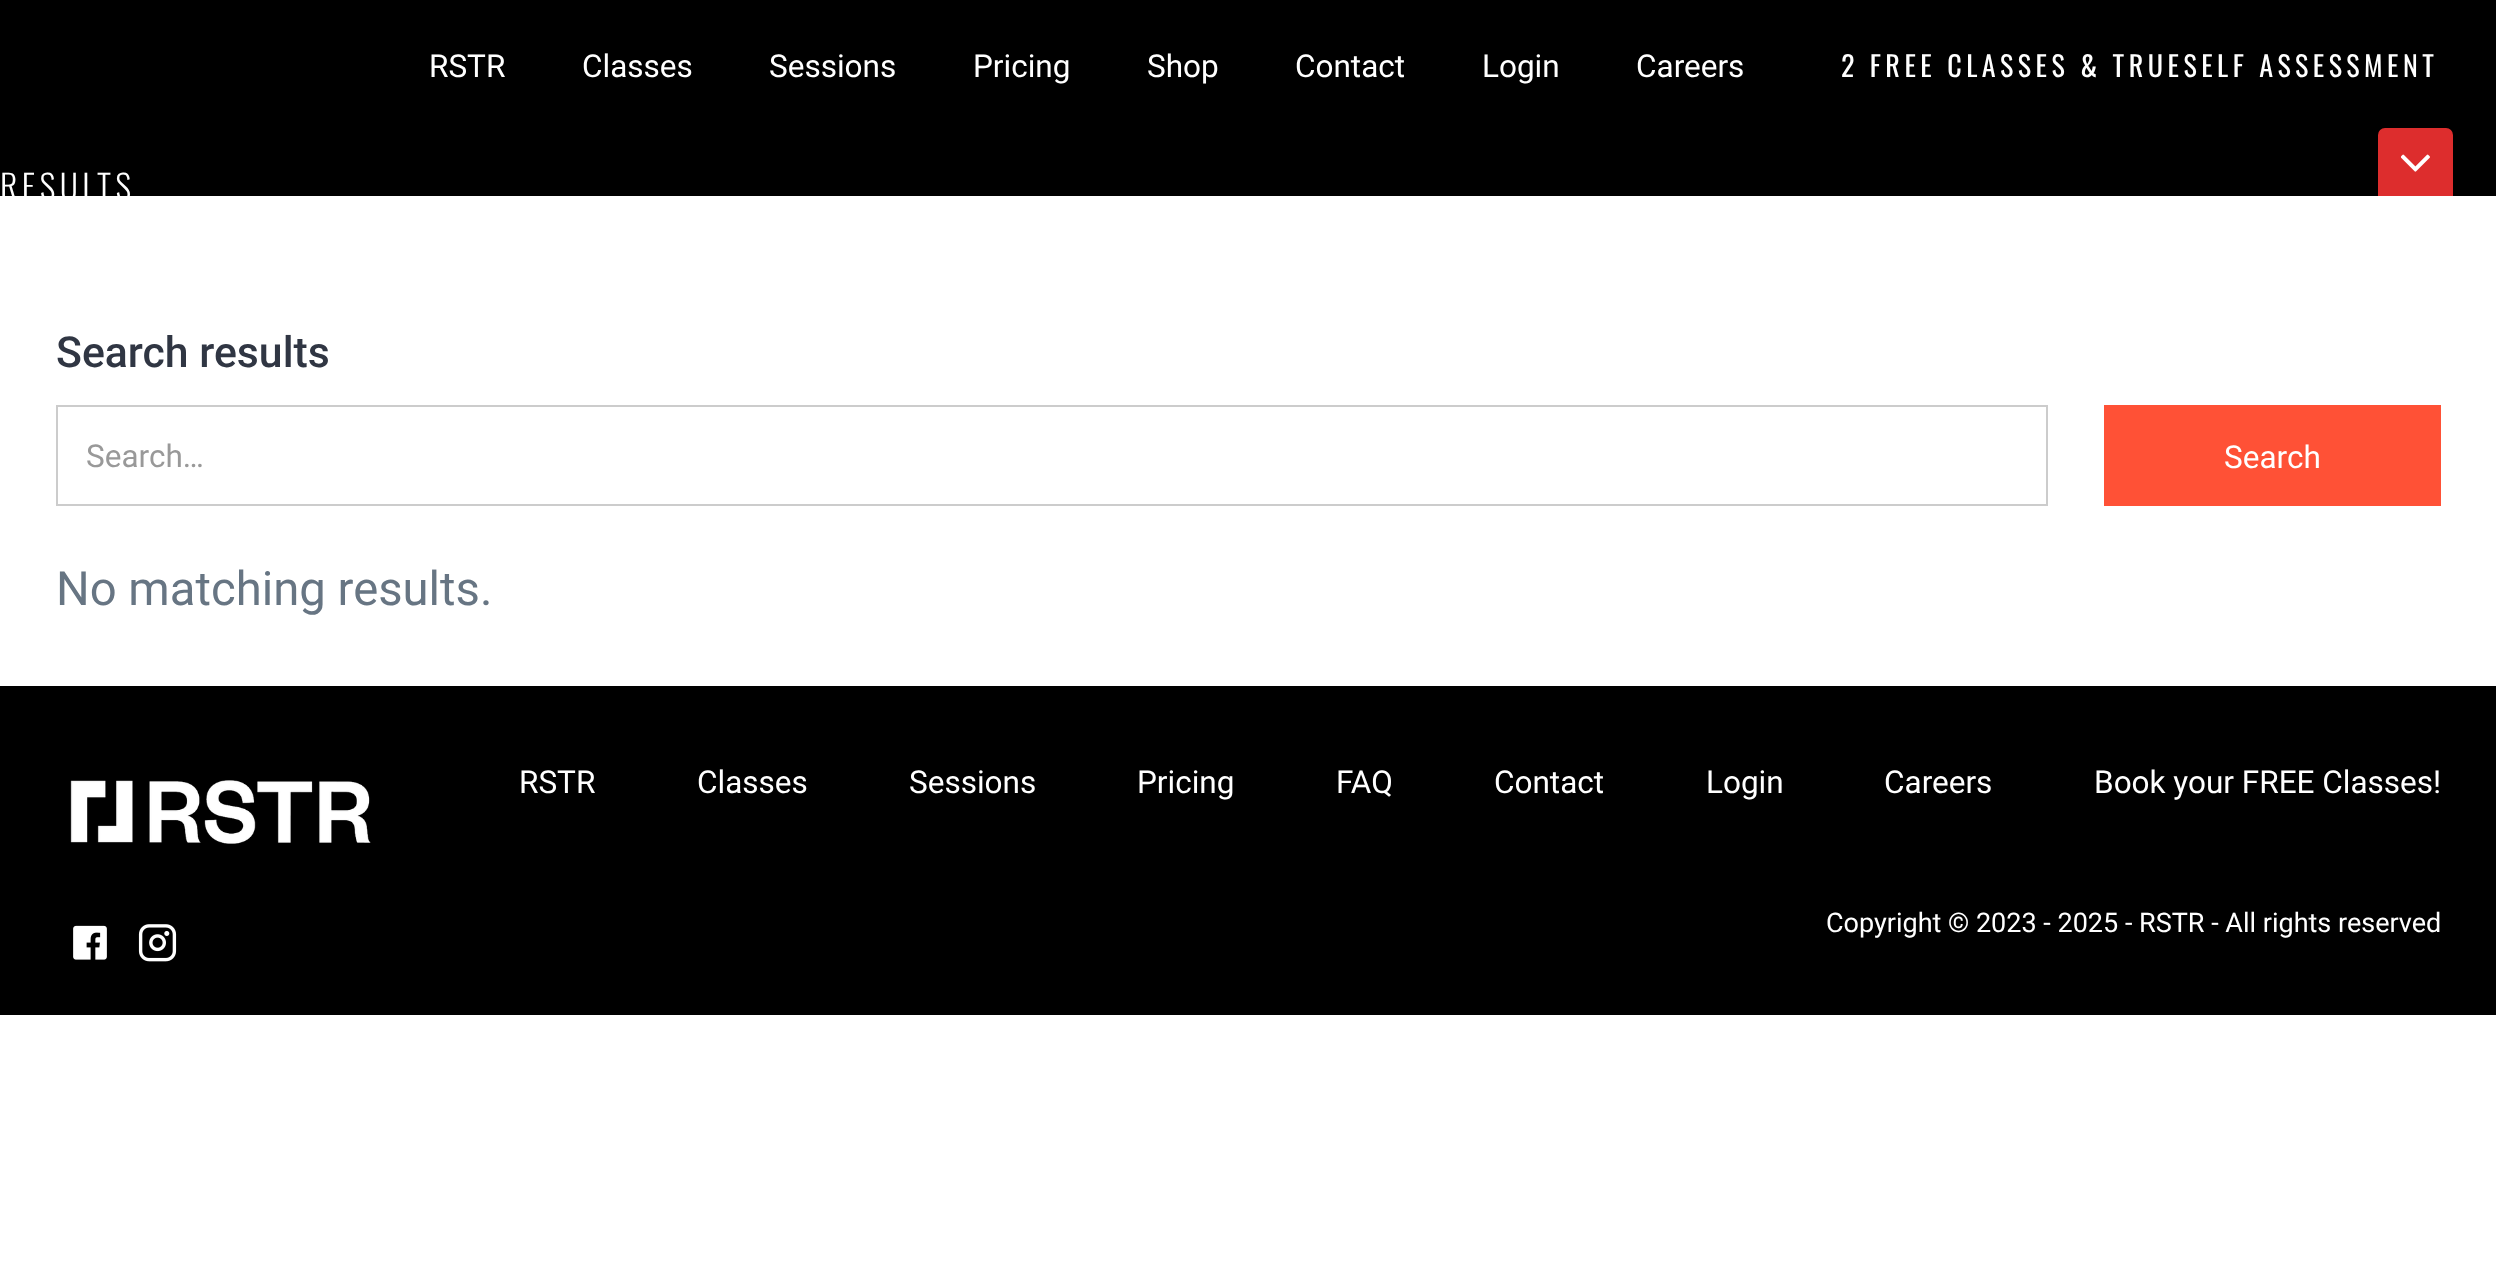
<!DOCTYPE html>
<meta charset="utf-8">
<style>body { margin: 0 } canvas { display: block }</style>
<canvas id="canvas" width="2496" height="1277"></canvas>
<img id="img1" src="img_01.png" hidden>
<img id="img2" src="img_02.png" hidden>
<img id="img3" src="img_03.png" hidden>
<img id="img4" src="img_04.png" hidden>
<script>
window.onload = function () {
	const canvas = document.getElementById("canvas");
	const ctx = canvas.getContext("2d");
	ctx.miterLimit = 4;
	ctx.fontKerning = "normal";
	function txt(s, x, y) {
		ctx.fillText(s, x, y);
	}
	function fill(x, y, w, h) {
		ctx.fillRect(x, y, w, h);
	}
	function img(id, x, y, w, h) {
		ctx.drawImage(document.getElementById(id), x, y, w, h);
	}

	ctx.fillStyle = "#FFFFFF";
	fill(0, 0, 2496, 1277);
	ctx.fillStyle = "#000000";
	fill(0, 0, 2496, 196);
	ctx.fillStyle = "#DD2D2D";
	ctx.beginPath();
	ctx.roundRect(2378, 128, 75, 68, [7, 7, 0, 0]);
	ctx.fill();
	img("img1", 2401, 154, 29, 18);
	ctx.strokeStyle = "#CCCCCC";
	ctx.lineWidth = 2;
	ctx.strokeRect(57, 406, 1990, 99);
	ctx.fillStyle = "#FF5136";
	fill(2104, 405, 337, 101);
	ctx.fillStyle = "#000000";
	fill(0, 686, 2496, 329);
	img("img2", 70, 780, 301, 64);
	img("img3", 73, 925, 34, 35);
	img("img4", 138, 924, 39, 38);
	ctx.font = "31.5px Roboto";
	ctx.fillStyle = "#FFFFFF";
	txt("RSTR", 429, 77);
	txt("Classes", 582, 77);
	txt("Sessions", 769, 77);
	txt("Pricing", 973, 77);
	txt("Shop", 1147, 77);
	txt("Contact", 1295, 77);
	txt("Login", 1482, 77);
	txt("Careers", 1636, 77);
	ctx.letterSpacing = "4.5px";
	ctx.font = "28.1px Oswald";
	txt("2 FREE CLASSES & TRUESELF ASSESSMENT", 1841, 77);
	ctx.save();
	ctx.beginPath();
	ctx.rect(0, 0, 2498, 196);
	ctx.clip();
	ctx.font = "300 33.75px Oswald";
	txt("RESULTS", 0, 200);
	ctx.restore();
	ctx.letterSpacing = "0px";
	ctx.font = "500 42.75px Roboto";
	ctx.fillStyle = "#303643";
	txt("Search results", 56, 367);
	ctx.font = "31.5px Roboto";
	ctx.fillStyle = "#999999";
	txt("Search…", 86, 467);
	ctx.fillStyle = "#FFFFFF";
	txt("Search", 2224, 468);
	ctx.font = "47.25px Roboto";
	ctx.fillStyle = "#677583";
	txt("No matching results.", 56, 605);
	ctx.font = "31.5px Roboto";
	ctx.fillStyle = "#FFFFFF";
	txt("RSTR", 519, 793);
	txt("Classes", 697, 793);
	txt("Sessions", 909, 793);
	txt("Pricing", 1137, 793);
	txt("FAQ", 1336, 793);
	txt("Contact", 1494, 793);
	txt("Login", 1706, 793);
	txt("Careers", 1884, 793);
	txt("Book your FREE Classes!", 2094, 793);
	ctx.font = "27px Roboto";
	txt("Copyright © 2023 - 2025 - RSTR - All rights reserved", 1826, 932);
};
</script>
